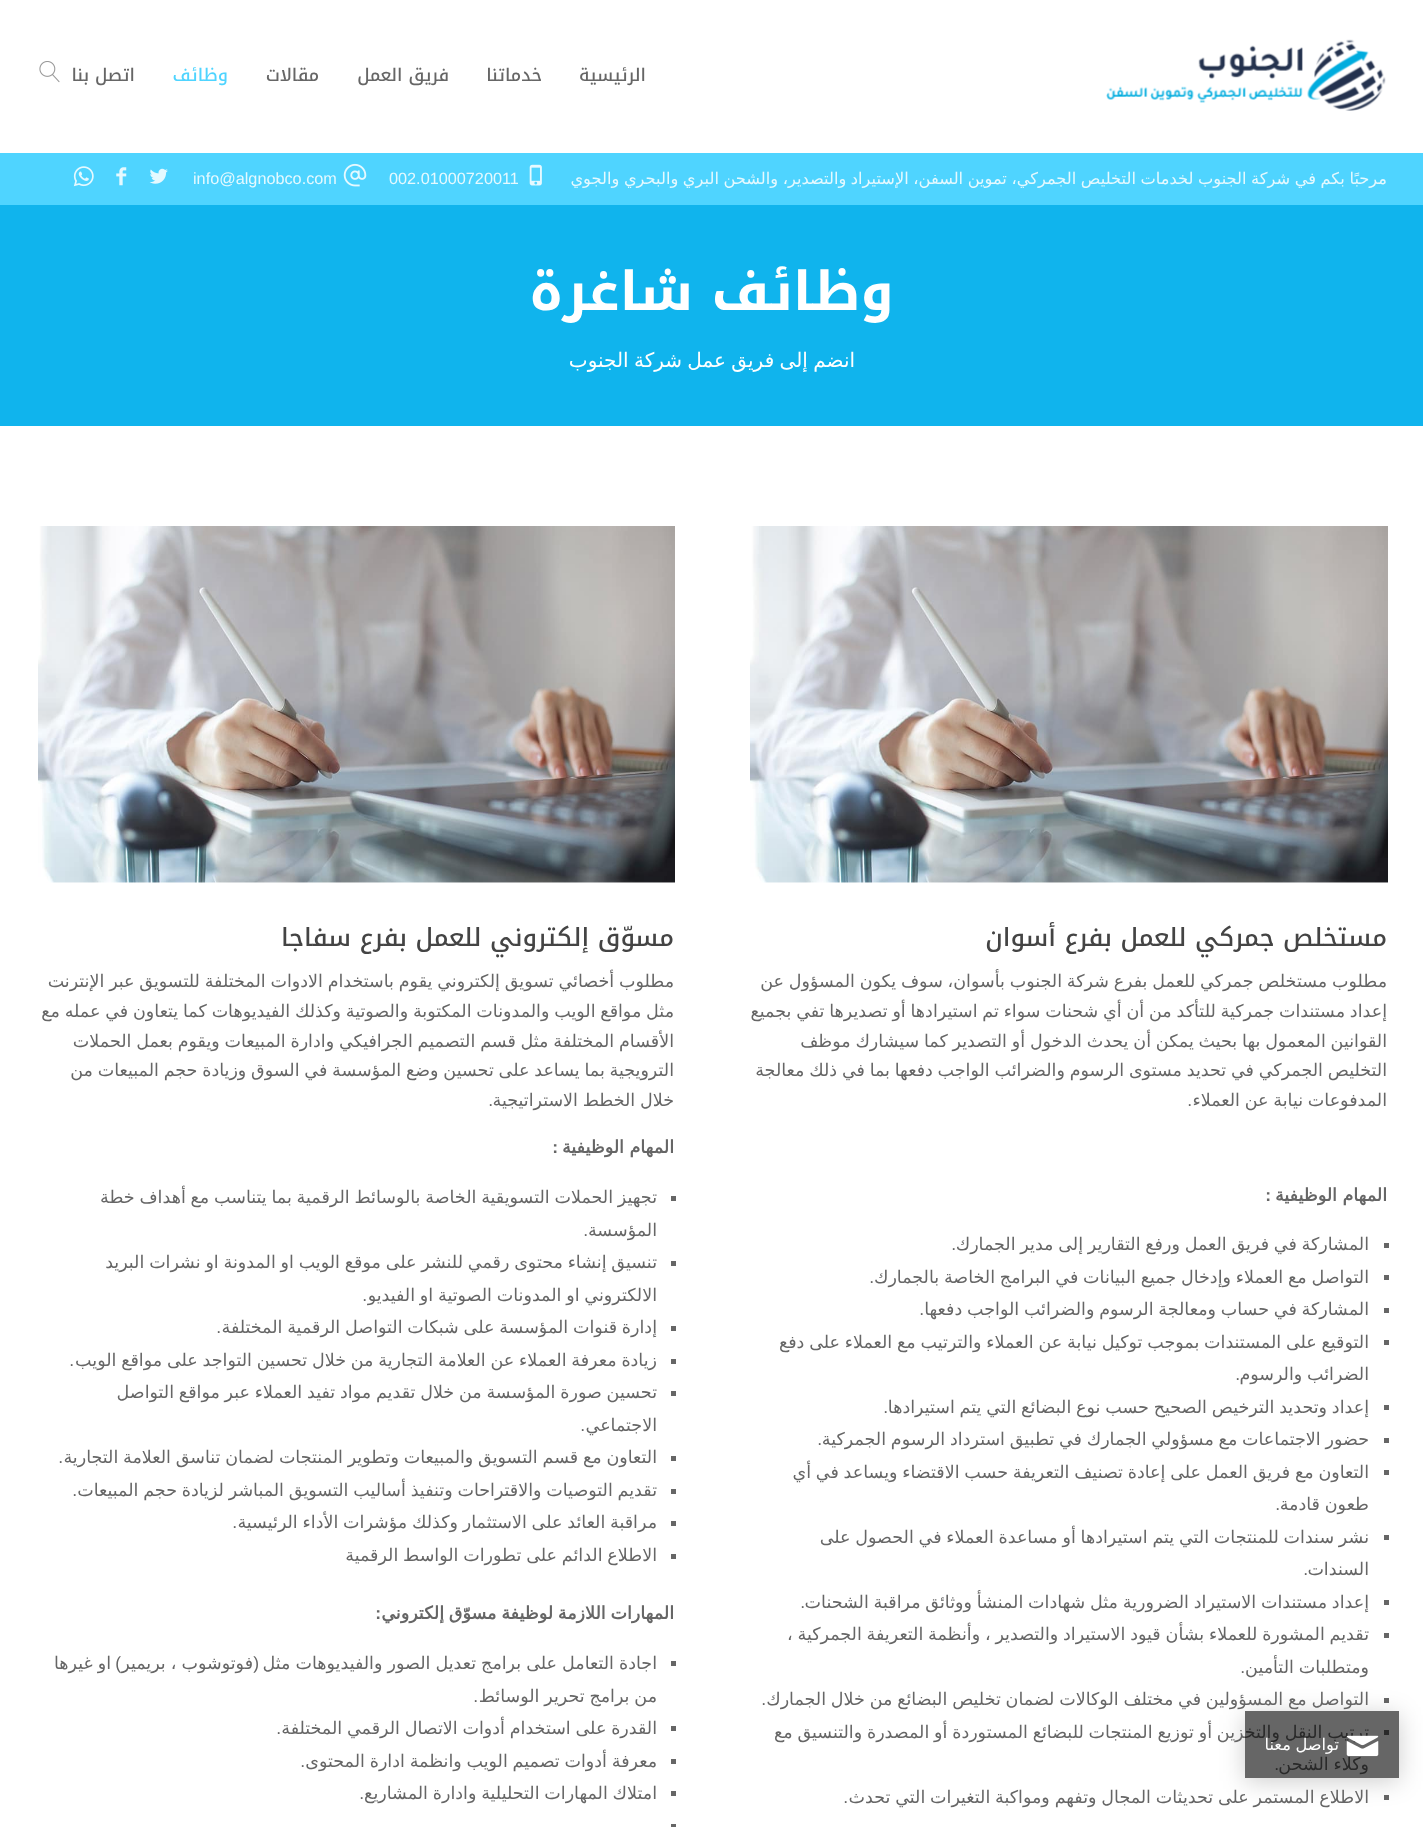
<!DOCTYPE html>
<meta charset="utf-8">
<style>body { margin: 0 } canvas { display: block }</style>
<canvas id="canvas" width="1423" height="1827"></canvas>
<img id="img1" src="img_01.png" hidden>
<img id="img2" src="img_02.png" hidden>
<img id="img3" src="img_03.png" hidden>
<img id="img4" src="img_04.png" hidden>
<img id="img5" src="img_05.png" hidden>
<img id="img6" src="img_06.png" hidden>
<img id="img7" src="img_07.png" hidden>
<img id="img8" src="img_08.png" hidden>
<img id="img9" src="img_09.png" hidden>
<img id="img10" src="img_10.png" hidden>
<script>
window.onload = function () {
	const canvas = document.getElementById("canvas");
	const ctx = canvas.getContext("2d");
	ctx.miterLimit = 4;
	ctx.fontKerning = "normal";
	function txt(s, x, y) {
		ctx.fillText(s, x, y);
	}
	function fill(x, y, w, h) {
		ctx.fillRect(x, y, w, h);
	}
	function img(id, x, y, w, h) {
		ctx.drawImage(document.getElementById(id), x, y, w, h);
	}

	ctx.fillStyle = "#FFFFFF";
	fill(0, 0, 1423, 1827);
	img("img1", 1106, 39, 280, 72);
	img("img2", 39, 61, 21, 22);
	ctx.fillStyle = "#4FD4FF";
	fill(0, 153, 1423, 52);
	img("img3", 529, 164, 13, 22);
	img("img4", 343, 163, 24, 24);
	img("img5", 149, 168, 19, 16);
	img("img6", 116, 167, 11, 19);
	img("img7", 73, 166, 21, 21);
	ctx.fillStyle = "#10B4ED";
	fill(0, 205, 1423, 221);
	img("img8", 750, 526, 638, 357);
	ctx.fillStyle = "#666666";
	fill(1384, 1243, 5, 5);
	fill(1384, 1275, 5, 5);
	fill(1384, 1308, 5, 5);
	fill(1384, 1340, 5, 5);
	fill(1384, 1405, 5, 5);
	fill(1384, 1438, 5, 5);
	fill(1384, 1470, 5, 5);
	fill(1384, 1535, 5, 5);
	fill(1384, 1600, 5, 5);
	fill(1384, 1633, 5, 5);
	fill(1384, 1698, 5, 5);
	fill(1384, 1730, 5, 5);
	fill(1384, 1795, 5, 5);
	img("img9", 38, 526, 637, 357);
	fill(671, 1196, 5, 5);
	fill(671, 1261, 5, 5);
	fill(671, 1326, 5, 5);
	fill(671, 1359, 5, 5);
	fill(671, 1391, 5, 5);
	fill(671, 1456, 5, 5);
	fill(671, 1489, 5, 5);
	fill(671, 1521, 5, 5);
	fill(671, 1554, 5, 5);
	fill(671, 1661, 5, 5);
	fill(671, 1726, 5, 5);
	fill(671, 1759, 5, 5);
	fill(671, 1791, 5, 5);
	fill(671, 1824, 5, 3);
	ctx.save();
	ctx.beginPath();
	ctx.moveTo(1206, 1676);
	ctx.lineTo(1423, 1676);
	ctx.lineTo(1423, 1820);
	ctx.lineTo(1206, 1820);
	ctx.closePath();
	ctx.moveTo(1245, 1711);
	ctx.lineTo(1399, 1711);
	ctx.lineTo(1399, 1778);
	ctx.lineTo(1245, 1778);
	ctx.closePath();
	ctx.clip("evenodd");
	ctx.fillStyle = "rgba(0, 0, 0, 0.2)";
	ctx.filter = "blur(12.5px)";
	ctx.beginPath();
	ctx.rect(1245, 1715, 154, 66);
	ctx.fill();
	ctx.filter = "none";
	ctx.restore();
	ctx.direction = "rtl";
	ctx.font = "500 17.5px Noto Kufi Arabic";
	txt("الرئيسية", 646, 81);
	txt("خدماتنا", 542, 81);
	txt("فريق العمل", 449, 81);
	txt("مقالات", 319, 81);
	ctx.fillStyle = "#4FD4FF";
	txt("وظائف", 228, 81);
	ctx.fillStyle = "#666666";
	txt("اتصل بنا", 135, 81);
	ctx.wordSpacing = "-0.6px";
	ctx.font = "16.25px DejaVu Sans";
	ctx.fillStyle = "#E5F9FF";
	txt("مرحبًا بكم في شركة الجنوب لخدمات التخليص الجمركي، تموين السفن، الإستيراد والتصدير، والشحن البري والبحري والجوي", 1387, 184);
	ctx.wordSpacing = "0px";
	ctx.direction = "ltr";
	ctx.font = "16.25px Liberation Sans";
	txt("002.01000720011", 389, 184);
	txt("info@algnobco.com", 193, 184);
	ctx.direction = "rtl";
	ctx.font = "bold 53.75px Noto Kufi Arabic";
	ctx.fillStyle = "#FFFFFF";
	txt("وظائف شاغرة", 894, 310);
	ctx.wordSpacing = "-1px";
	ctx.font = "20px DejaVu Sans";
	txt("انضم إلى فريق عمل شركة الجنوب", 855, 367);
	ctx.wordSpacing = "0px";
	ctx.font = "500 25px Noto Kufi Arabic";
	ctx.fillStyle = "#444444";
	txt("مستخلص جمركي للعمل بفرع أسوان", 1387, 946);
	ctx.wordSpacing = "-0.75px";
	ctx.font = "17.5px DejaVu Sans";
	ctx.fillStyle = "#666666";
	txt("مطلوب مستخلص جمركي للعمل بفرع شركة الجنوب بأسوان، سوف يكون المسؤول عن", 1387, 987);
	txt("إعداد مستندات جمركية للتأكد من أن أي شحنات سواء تم استيرادها أو تصديرها تفي بجميع", 1387, 1017);
	txt("القوانين المعمول بها بحيث يمكن أن يحدث الدخول أو التصدير كما سيشارك موظف", 1387, 1047);
	txt("التخليص الجمركي في تحديد مستوى الرسوم والضرائب الواجب دفعها بما في ذلك معالجة", 1387, 1076);
	txt("المدفوعات نيابة عن العملاء", 1387, 1106);
	ctx.wordSpacing = "0px";
	ctx.font = "17.5px Liberation Sans";
	txt(".", 1192, 1106);
	ctx.font = "bold 17.5px DejaVu Sans";
	txt("المهام الوظيفية", 1387, 1201);
	ctx.font = "bold 17.5px Liberation Sans";
	txt(":", 1271, 1201);
	ctx.wordSpacing = "-0.75px";
	ctx.font = "17.5px DejaVu Sans";
	txt("المشاركة في فريق العمل ورفع التقارير إلى مدير الجمارك", 1369, 1250);
	ctx.wordSpacing = "0px";
	ctx.font = "17.5px Liberation Sans";
	txt(".", 956, 1250);
	ctx.wordSpacing = "-0.75px";
	ctx.font = "17.5px DejaVu Sans";
	txt("التواصل مع العملاء وإدخال جميع البيانات في البرامج الخاصة بالجمارك", 1369, 1283);
	ctx.wordSpacing = "0px";
	ctx.font = "17.5px Liberation Sans";
	txt(".", 874, 1283);
	ctx.wordSpacing = "-0.75px";
	ctx.font = "17.5px DejaVu Sans";
	txt("المشاركة في حساب ومعالجة الرسوم والضرائب الواجب دفعها", 1369, 1315);
	ctx.wordSpacing = "0px";
	ctx.font = "17.5px Liberation Sans";
	txt(".", 924, 1315);
	ctx.wordSpacing = "-0.75px";
	ctx.font = "17.5px DejaVu Sans";
	txt("التوقيع على المستندات بموجب توكيل نيابة عن العملاء والترتيب مع العملاء على دفع", 1369, 1348);
	txt("الضرائب والرسوم", 1369, 1380);
	ctx.wordSpacing = "0px";
	ctx.font = "17.5px Liberation Sans";
	txt(".", 1240, 1380);
	ctx.wordSpacing = "-0.75px";
	ctx.font = "17.5px DejaVu Sans";
	txt("إعداد وتحديد الترخيص الصحيح حسب نوع البضائع التي يتم استيرادها", 1369, 1413);
	ctx.wordSpacing = "0px";
	ctx.font = "17.5px Liberation Sans";
	txt(".", 888, 1413);
	ctx.wordSpacing = "-0.75px";
	ctx.font = "17.5px DejaVu Sans";
	txt("حضور الاجتماعات مع مسؤولي الجمارك في تطبيق استرداد الرسوم الجمركية", 1369, 1445);
	ctx.wordSpacing = "0px";
	ctx.font = "17.5px Liberation Sans";
	txt(".", 822, 1445);
	ctx.wordSpacing = "-0.75px";
	ctx.font = "17.5px DejaVu Sans";
	txt("التعاون مع فريق العمل على إعادة تصنيف التعريفة حسب الاقتضاء ويساعد في أي", 1369, 1478);
	txt("طعون قادمة", 1369, 1510);
	ctx.wordSpacing = "0px";
	ctx.font = "17.5px Liberation Sans";
	txt(".", 1280, 1510);
	ctx.wordSpacing = "-0.75px";
	ctx.font = "17.5px DejaVu Sans";
	txt("نشر سندات للمنتجات التي يتم استيرادها أو مساعدة العملاء في الحصول على", 1369, 1543);
	ctx.wordSpacing = "0px";
	txt("السندات", 1369, 1575);
	ctx.font = "17.5px Liberation Sans";
	txt(".", 1308, 1575);
	ctx.wordSpacing = "-0.75px";
	ctx.font = "17.5px DejaVu Sans";
	txt("إعداد مستندات الاستيراد الضرورية مثل شهادات المنشأ ووثائق مراقبة الشحنات", 1369, 1608);
	ctx.wordSpacing = "0px";
	ctx.font = "17.5px Liberation Sans";
	txt(".", 805, 1608);
	ctx.wordSpacing = "-0.75px";
	ctx.font = "17.5px DejaVu Sans";
	txt("تقديم المشورة للعملاء بشأن قيود الاستيراد والتصدير ، وأنظمة التعريفة الجمركية ،", 1369, 1640);
	txt("ومتطلبات التأمين", 1369, 1673);
	ctx.wordSpacing = "0px";
	ctx.font = "17.5px Liberation Sans";
	txt(".", 1245, 1673);
	ctx.wordSpacing = "-0.75px";
	ctx.font = "17.5px DejaVu Sans";
	txt("التواصل مع المسؤولين في مختلف الوكالات لضمان تخليص البضائع من خلال الجمارك", 1369, 1705);
	ctx.wordSpacing = "0px";
	ctx.font = "17.5px Liberation Sans";
	txt(".", 766, 1705);
	ctx.wordSpacing = "-0.75px";
	ctx.font = "17.5px DejaVu Sans";
	txt("ترتيب النقل والتخزين أو توزيع المنتجات للبضائع المستوردة أو المصدرة والتنسيق مع", 1369, 1738);
	txt("وكلاء الشحن", 1369, 1770);
	ctx.wordSpacing = "0px";
	ctx.font = "17.5px Liberation Sans";
	txt(".", 1279, 1770);
	ctx.wordSpacing = "-0.75px";
	ctx.font = "17.5px DejaVu Sans";
	txt("الاطلاع المستمر على تحديثات المجال وتفهم ومواكبة التغيرات التي تحدث", 1369, 1803);
	ctx.wordSpacing = "0px";
	ctx.font = "17.5px Liberation Sans";
	txt(".", 848, 1803);
	ctx.font = "500 25px Noto Kufi Arabic";
	ctx.fillStyle = "#444444";
	txt("مسوّق إلكتروني للعمل بفرع سفاجا", 674, 946);
	ctx.wordSpacing = "-0.75px";
	ctx.font = "17.5px DejaVu Sans";
	ctx.fillStyle = "#666666";
	txt("مطلوب أخصائي تسويق إلكتروني يقوم باستخدام الادوات المختلفة للتسويق عبر الإنترنت", 674, 987);
	txt("مثل مواقع الويب والمدونات المكتوبة والصوتية وكذلك الفيديوهات كما يتعاون في عمله مع", 674, 1017);
	txt("الأقسام المختلفة مثل قسم التصميم الجرافيكي وادارة المبيعات ويقوم بعمل الحملات", 674, 1047);
	txt("الترويجية بما يساعد على تحسين وضع المؤسسة في السوق وزيادة حجم المبيعات من", 674, 1076);
	txt("خلال الخطط الاستراتيجية", 674, 1106);
	ctx.wordSpacing = "0px";
	ctx.font = "17.5px Liberation Sans";
	txt(".", 493, 1106);
	ctx.font = "bold 17.5px DejaVu Sans";
	txt("المهام الوظيفية", 674, 1153);
	ctx.font = "bold 17.5px Liberation Sans";
	txt(":", 558, 1153);
	ctx.wordSpacing = "-0.75px";
	ctx.font = "17.5px DejaVu Sans";
	txt("تجهيز الحملات التسويقية الخاصة بالوسائط الرقمية بما يتناسب مع أهداف خطة", 657, 1203);
	ctx.wordSpacing = "0px";
	txt("المؤسسة", 657, 1236);
	ctx.font = "17.5px Liberation Sans";
	txt(".", 588, 1236);
	ctx.wordSpacing = "-0.75px";
	ctx.font = "17.5px DejaVu Sans";
	txt("تنسيق إنشاء محتوى رقمي للنشر على موقع الويب او المدونة او نشرات البريد", 657, 1268);
	txt("الالكتروني او المدونات الصوتية او الفيديو", 657, 1301);
	ctx.wordSpacing = "0px";
	ctx.font = "17.5px Liberation Sans";
	txt(".", 367, 1301);
	ctx.wordSpacing = "-0.75px";
	ctx.font = "17.5px DejaVu Sans";
	txt("إدارة قنوات المؤسسة على شبكات التواصل الرقمية المختلفة", 657, 1333);
	ctx.wordSpacing = "0px";
	ctx.font = "17.5px Liberation Sans";
	txt(".", 221, 1333);
	ctx.wordSpacing = "-0.75px";
	ctx.font = "17.5px DejaVu Sans";
	txt("زيادة معرفة العملاء عن العلامة التجارية من خلال تحسين التواجد على مواقع الويب", 657, 1366);
	ctx.wordSpacing = "0px";
	ctx.font = "17.5px Liberation Sans";
	txt(".", 74, 1366);
	ctx.wordSpacing = "-0.75px";
	ctx.font = "17.5px DejaVu Sans";
	txt("تحسين صورة المؤسسة من خلال تقديم مواد تفيد العملاء عبر مواقع التواصل", 657, 1398);
	ctx.wordSpacing = "0px";
	txt("الاجتماعي", 657, 1431);
	ctx.font = "17.5px Liberation Sans";
	txt(".", 585, 1431);
	ctx.wordSpacing = "-0.75px";
	ctx.font = "17.5px DejaVu Sans";
	txt("التعاون مع قسم التسويق والمبيعات وتطوير المنتجات لضمان تناسق العلامة التجارية", 657, 1463);
	ctx.wordSpacing = "0px";
	ctx.font = "17.5px Liberation Sans";
	txt(".", 63, 1463);
	ctx.wordSpacing = "-0.75px";
	ctx.font = "17.5px DejaVu Sans";
	txt("تقديم التوصيات والاقتراحات وتنفيذ أساليب التسويق المباشر لزيادة حجم المبيعات", 657, 1496);
	ctx.wordSpacing = "0px";
	ctx.font = "17.5px Liberation Sans";
	txt(".", 77, 1496);
	ctx.wordSpacing = "-0.75px";
	ctx.font = "17.5px DejaVu Sans";
	txt("مراقبة العائد على الاستثمار وكذلك مؤشرات الأداء الرئيسية", 657, 1528);
	ctx.wordSpacing = "0px";
	ctx.font = "17.5px Liberation Sans";
	txt(".", 237, 1528);
	ctx.wordSpacing = "-0.75px";
	ctx.font = "17.5px DejaVu Sans";
	txt("الاطلاع الدائم على تطورات الواسط الرقمية", 657, 1561);
	ctx.font = "bold 17.5px DejaVu Sans";
	txt("المهارات اللازمة لوظيفة مسوّق إلكتروني", 674, 1619);
	ctx.wordSpacing = "0px";
	ctx.font = "bold 17.5px Liberation Sans";
	txt(":", 381, 1619);
	ctx.wordSpacing = "-0.5px";
	ctx.font = "17.5px DejaVu Sans";
	txt("اجادة التعامل على برامج تعديل الصور والفيديوهات مثل", 657, 1669);
	ctx.wordSpacing = "0px";
	ctx.font = "17.5px Liberation Sans";
	txt("(", 259, 1669);
	txt(")", 121, 1669);
	ctx.wordSpacing = "-0.5px";
	ctx.font = "17.5px DejaVu Sans";
	txt("فوتوشوب ، بريمير", 253, 1669);
	txt("او غيرها", 111, 1669);
	ctx.wordSpacing = "-0.75px";
	txt("من برامج تحرير الوسائط", 657, 1702);
	ctx.wordSpacing = "0px";
	ctx.font = "17.5px Liberation Sans";
	txt(".", 478, 1702);
	ctx.wordSpacing = "-0.75px";
	ctx.font = "17.5px DejaVu Sans";
	txt("القدرة على استخدام أدوات الاتصال الرقمي المختلفة", 657, 1734);
	ctx.wordSpacing = "0px";
	ctx.font = "17.5px Liberation Sans";
	txt(".", 281, 1734);
	ctx.wordSpacing = "-0.75px";
	ctx.font = "17.5px DejaVu Sans";
	txt("معرفة أدوات تصميم الويب وانظمة ادارة المحتوى", 657, 1767);
	ctx.wordSpacing = "0px";
	ctx.font = "17.5px Liberation Sans";
	txt(".", 305, 1767);
	ctx.wordSpacing = "-0.75px";
	ctx.font = "17.5px DejaVu Sans";
	txt("امتلاك المهارات التحليلية وادارة المشاريع", 657, 1799);
	ctx.wordSpacing = "0px";
	ctx.font = "17.5px Liberation Sans";
	txt(".", 364, 1799);
	ctx.fillStyle = "rgba(0, 0, 0, 0.6)";
	fill(1245, 1711, 154, 67);
	img("img10", 1346, 1735, 33, 22);
	ctx.wordSpacing = "-0.6px";
	ctx.font = "16.25px DejaVu Sans";
	ctx.fillStyle = "#FFFFFF";
	txt("تواصل معنا", 1339, 1750);
};
</script>
